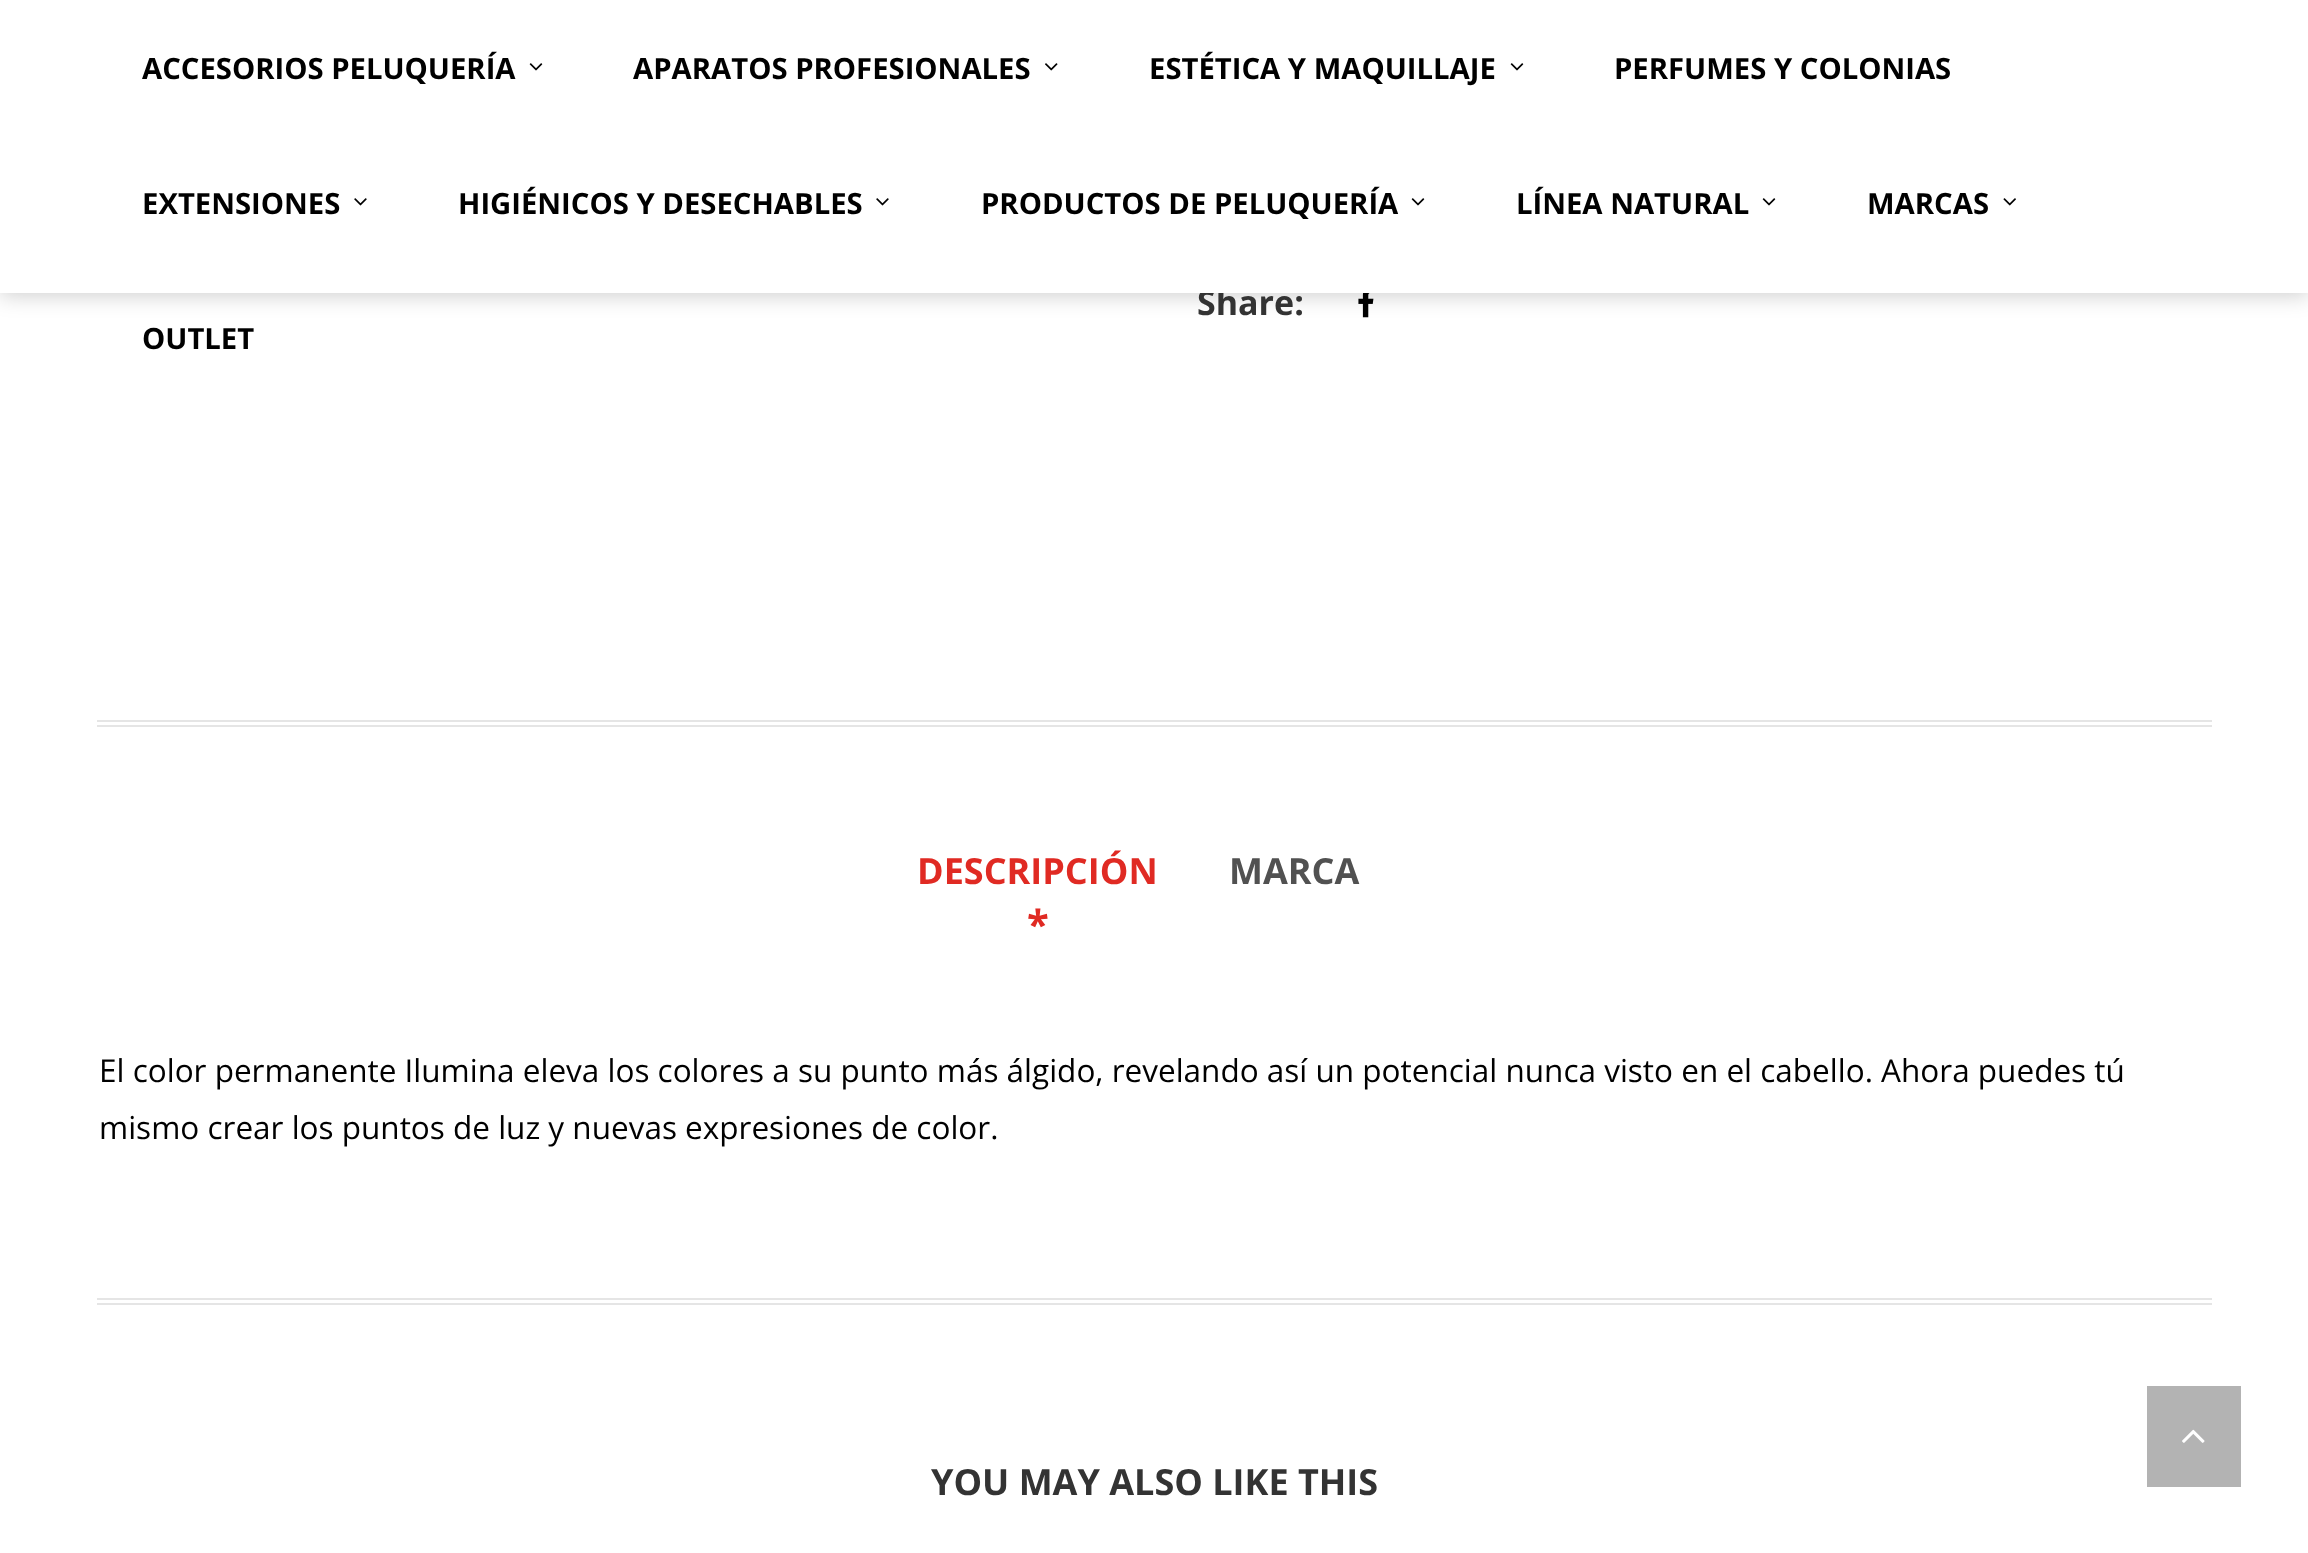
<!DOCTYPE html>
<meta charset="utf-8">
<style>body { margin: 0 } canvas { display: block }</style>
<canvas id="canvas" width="2308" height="1553"></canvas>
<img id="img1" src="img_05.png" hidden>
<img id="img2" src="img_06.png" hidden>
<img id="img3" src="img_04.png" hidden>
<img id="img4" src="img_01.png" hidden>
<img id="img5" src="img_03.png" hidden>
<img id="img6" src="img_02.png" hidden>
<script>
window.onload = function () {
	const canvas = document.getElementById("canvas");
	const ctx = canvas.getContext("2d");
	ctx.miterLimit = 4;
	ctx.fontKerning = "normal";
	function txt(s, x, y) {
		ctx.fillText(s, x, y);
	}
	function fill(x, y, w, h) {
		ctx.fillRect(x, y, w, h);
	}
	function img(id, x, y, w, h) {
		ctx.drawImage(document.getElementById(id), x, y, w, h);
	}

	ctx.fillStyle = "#FFFFFF";
	fill(0, 0, 2308, 1553);
	img("img1", 1358, 293, 16, 25);
	ctx.fillStyle = "rgba(0, 0, 0, 0.2)";
	ctx.filter = "blur(11px)";
	ctx.beginPath();
	ctx.rect(0, 2, 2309, 293);
	ctx.fill();
	ctx.filter = "none";
	ctx.fillStyle = "#E5E5E5";
	fill(97, 720, 2115, 2);
	fill(97, 725, 2115, 2);
	fill(97, 1298, 2115, 2);
	fill(97, 1303, 2115, 2);
	ctx.fillStyle = "#B3B3B3";
	fill(2147, 1386, 94, 101);
	img("img2", 2182, 1429, 23, 14);
	ctx.font = "bold 29.25px Open Sans";
	ctx.fillStyle = "#000000";
	txt("OUTLET", 142, 349);
	ctx.font = "bold 34px Open Sans";
	ctx.fillStyle = "#333333";
	txt("Share:", 1197, 315);
	ctx.fillStyle = "#FFFFFF";
	fill(0, 0, 2308, 293);
	img("img3", 2003, 198, 13, 8);
	ctx.font = "bold 29.25px Open Sans";
	ctx.fillStyle = "#000000";
	txt("MARCAS", 1867, 214);
	img("img4", 1762, 198, 14, 8);
	txt("LÍNEA NATURAL", 1516, 214);
	img("img4", 1411, 198, 14, 8);
	txt("PRODUCTOS DE PELUQUERÍA", 981, 214);
	img("img5", 876, 198, 13, 8);
	txt("HIGIÉNICOS Y DESECHABLES", 458, 214);
	img("img5", 354, 198, 13, 8);
	txt("EXTENSIONES", 142, 214);
	txt("PERFUMES Y COLONIAS", 1614, 79);
	img("img4", 1510, 63, 14, 8);
	txt("ESTÉTICA Y MAQUILLAJE", 1149, 79);
	img("img6", 1045, 63, 13, 8);
	txt("APARATOS PROFESIONALES", 633, 79);
	img("img4", 529, 63, 14, 8);
	txt("ACCESORIOS PELUQUERÍA", 142, 79);
	ctx.font = "bold 36px Open Sans";
	ctx.fillStyle = "#E02A23";
	txt("DESCRIPCIÓN", 917, 884);
	ctx.font = "bold 40px Open Sans";
	txt("*", 1027, 939);
	ctx.font = "bold 36px Open Sans";
	ctx.fillStyle = "#515151";
	txt("MARCA", 1229, 884);
	ctx.font = "31.5px Open Sans";
	ctx.fillStyle = "#000000";
	txt("El color permanente Ilumina eleva los colores a su punto más álgido, revelando así un potencial nunca visto en el cabello. Ahora puedes tú", 99, 1082);
	txt("mismo crear los puntos de luz y nuevas expresiones de color.", 99, 1139);
	ctx.font = "bold 36px Open Sans";
	ctx.fillStyle = "#333333";
	txt("YOU MAY ALSO LIKE THIS", 931, 1495);
};
</script>
